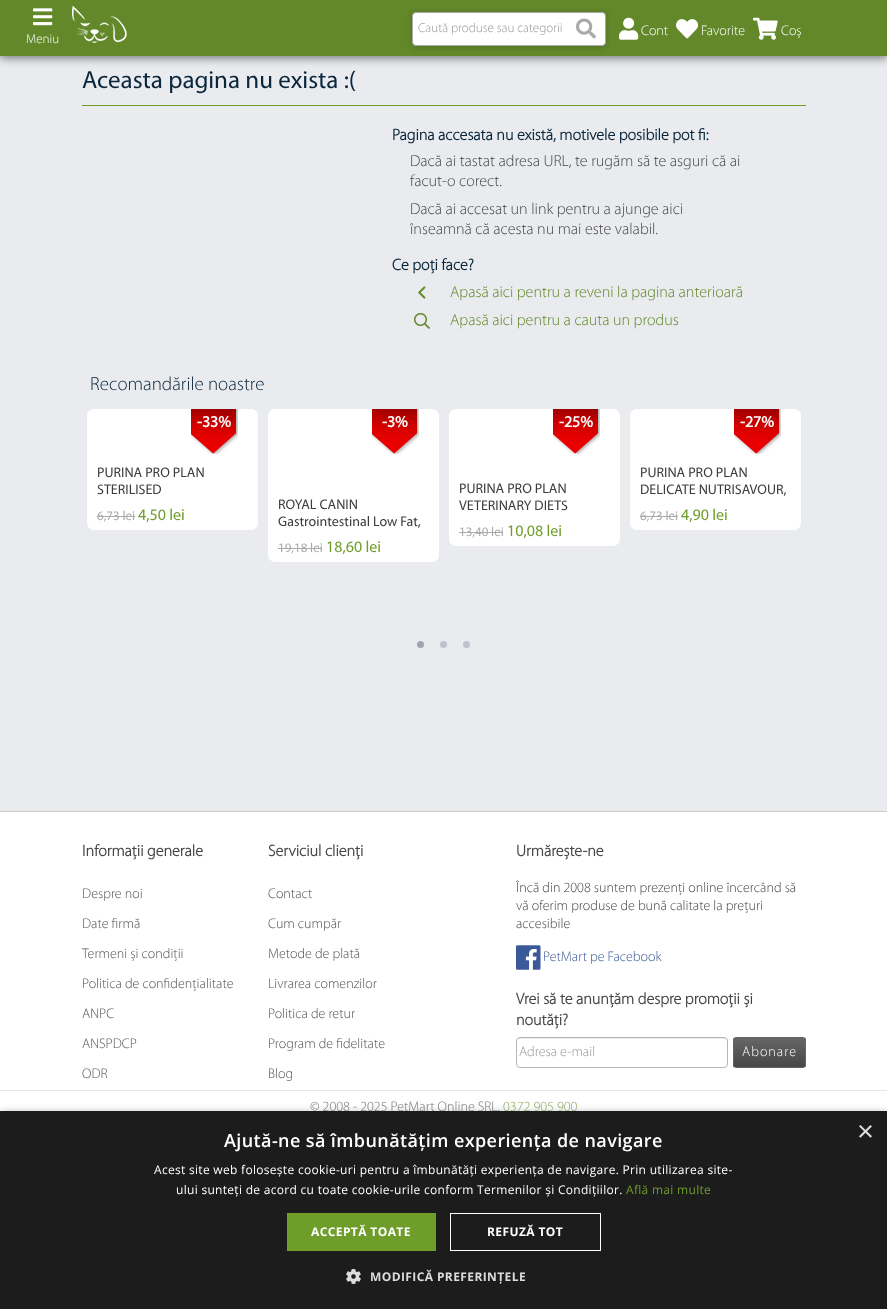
<!DOCTYPE html>
<meta charset="utf-8">
<style>body { margin: 0 } canvas { display: block }</style>
<canvas id="canvas" width="887" height="1309"></canvas>
<img id="img1" src="img_01.png" hidden>
<img id="img2" src="img_02.png" hidden>
<img id="img3" src="img_03.png" hidden>
<img id="img4" src="img_04.png" hidden>
<img id="img5" src="img_05.png" hidden>
<img id="img6" src="img_06.png" hidden>
<img id="img7" src="img_07.png" hidden>
<img id="img8" src="img_08.png" hidden>
<img id="img9" src="img_09.png" hidden>
<img id="img10" src="img_10.png" hidden>
<img id="img11" src="img_11.png" hidden>
<script>
window.onload = function () {
	const canvas = document.getElementById("canvas");
	const ctx = canvas.getContext("2d");
	ctx.miterLimit = 4;
	ctx.fontKerning = "normal";
	function txt(s, x, y) {
		ctx.fillText(s, x, y);
	}
	function fill(x, y, w, h) {
		ctx.fillRect(x, y, w, h);
	}
	function round(x, y, w, h, r) {
		ctx.beginPath();
		ctx.roundRect(x, y, w, h, r);
		ctx.fill();
	}
	function img(id, x, y, w, h) {
		ctx.drawImage(document.getElementById(id), x, y, w, h);
	}
	let gradient;

	ctx.fillStyle = "#FFFFFF";
	fill(0, 0, 887, 1309);
	ctx.fillStyle = "#E9EBEE";
	fill(0, 56, 887, 755);
	ctx.fillStyle = "rgba(0, 0, 0, 0.4)";
	ctx.filter = "blur(4px)";
	ctx.beginPath();
	ctx.rect(0, 3, 887, 56);
	ctx.fill();
	ctx.filter = "none";
	ctx.fillStyle = "rgba(0, 0, 0, 0.07)";
	ctx.filter = "blur(2px)";
	ctx.beginPath();
	ctx.rect(0, 1, 887, 56);
	ctx.fill();
	ctx.filter = "none";
	ctx.fillStyle = "#62882A";
	fill(0, 0, 887, 56);
	ctx.fillStyle = "rgba(0, 0, 0, 0.13)";
	ctx.filter = "blur(2.5px)";
	ctx.beginPath();
	ctx.roundRect(411, 12, 196, 36, 5);
	ctx.fill();
	ctx.filter = "none";
	ctx.fillStyle = "#FFFFFF";
	ctx.beginPath();
	ctx.roundRect(412.5, 12.5, 193, 33, 3.5);
	ctx.fill();
	ctx.strokeStyle = "#AAAAAA";
	ctx.stroke();
	img("img1", 576, 18, 20, 21);
	img("img2", 619, 17, 20, 23);
	img("img3", 676, 19, 22, 20);
	img("img4", 753, 17, 25, 23);
	img("img5", 33, 8, 20, 18);
	img("img6", 72, 6, 55, 37);
	ctx.fillStyle = "#6F9D2A";
	fill(82, 105, 724, 1);
	img("img7", 418, 286, 8, 13);
	img("img8", 414, 313, 16, 16);
	ctx.fillStyle = "#FFFFFF";
	round(87, 409, 171, 121, 7);
	img("img9", 191, 409, 47, 45);
	ctx.fillStyle = "#AAAAAA";
	fill(97, 516, 38, 1);
	ctx.fillStyle = "#FFFFFF";
	round(268, 409, 171, 153, 7);
	img("img9", 372, 409, 47, 45);
	ctx.fillStyle = "#AAAAAA";
	fill(278, 548, 44, 1);
	ctx.fillStyle = "#FFFFFF";
	round(449, 409, 171, 137, 7);
	img("img9", 553, 409, 47, 45);
	ctx.fillStyle = "#AAAAAA";
	fill(459, 532, 44, 1);
	ctx.fillStyle = "#FFFFFF";
	round(630, 409, 171, 121, 7);
	img("img9", 734, 409, 47, 45);
	ctx.fillStyle = "#AAAAAA";
	fill(640, 516, 38, 1);
	ctx.fillStyle = "#A3A4B3";
	ctx.beginPath();
	ctx.arc(420.5, 644.5, 3.5, 0, Math.PI * 2);
	ctx.fill();
	ctx.fillStyle = "#C0C1CC";
	ctx.beginPath();
	ctx.arc(443.5, 644.5, 3.5, 0, Math.PI * 2);
	ctx.fill();
	ctx.beginPath();
	ctx.arc(466.5, 644.5, 3.5, 0, Math.PI * 2);
	ctx.fill();
	ctx.fillStyle = "#CCCCCC";
	fill(0, 811, 887, 1);
	img("img10", 516, 945, 25, 25);
	ctx.fillStyle = "#ECECEC";
	ctx.beginPath();
	ctx.moveTo(520, 1039);
	ctx.lineTo(724, 1039);
	ctx.bezierCurveTo(726, 1039, 727, 1040, 727, 1042);
	ctx.lineTo(727, 1041);
	ctx.bezierCurveTo(727, 1039, 726, 1038, 724, 1038);
	ctx.lineTo(520, 1038);
	ctx.bezierCurveTo(518, 1038, 517, 1039, 517, 1041);
	ctx.lineTo(517, 1042);
	ctx.bezierCurveTo(517, 1040, 518, 1039, 520, 1039);
	ctx.closePath();
	ctx.fill();
	ctx.beginPath();
	ctx.roundRect(516.5, 1037.5, 211, 30, 3.5);
	ctx.strokeStyle = "#B6B6B6";
	ctx.stroke();
	ctx.save();
	ctx.beginPath();
	ctx.roundRect(733, 1037, 73, 31, 3);
	ctx.clip();
	gradient = ctx.createLinearGradient(770, 1038, 770, 1067);
	gradient.addColorStop(0, "#666666");
	gradient.addColorStop(1, "#474747");
	ctx.fillStyle = gradient;
	fill(733, 1038, 73, 29);
	ctx.restore();
	ctx.beginPath();
	ctx.roundRect(733.5, 1037.5, 72, 30, 2.5);
	ctx.strokeStyle = "#666666";
	ctx.stroke();
	ctx.fillStyle = "#E6E6E6";
	fill(0, 1090, 887, 1);
	ctx.fillStyle = "rgba(0, 0, 0, 0.35)";
	ctx.filter = "blur(4px)";
	ctx.beginPath();
	ctx.rect(1, 1113, 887, 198);
	ctx.fill();
	ctx.filter = "none";
	ctx.font = "300 13px Myriad";
	ctx.fillStyle = "#999999";
	txt("Caută produse sau categorii", 418, 32);
	ctx.font = "300 14px Myriad";
	ctx.fillStyle = "#FFFFFF";
	txt("Cont", 641, 35);
	txt("Favorite", 701, 35);
	txt("Coș", 781, 35);
	ctx.font = "300 13px Myriad";
	txt("Meniu", 26, 43);
	ctx.font = "25px Myriad";
	ctx.fillStyle = "#0A263C";
	txt("Aceasta pagina nu exista :(", 82, 88);
	ctx.font = "bold 16px Myriad";
	txt("Pagina accesata nu există, motivele posibile pot fi:", 392, 140);
	ctx.font = "300 16px Myriad";
	ctx.fillStyle = "#474747";
	txt("Dacă ai tastat adresa URL, te rugăm să te asguri că ai", 410, 166);
	txt("facut-o corect.", 410, 186);
	txt("Dacă ai accesat un link pentru a ajunge aici", 410, 214);
	txt("înseamnă că acesta nu mai este valabil.", 410, 234);
	ctx.font = "bold 16px Myriad";
	ctx.fillStyle = "#0A263C";
	txt("Ce poți face?", 392, 270);
	ctx.font = "300 16px Myriad";
	ctx.fillStyle = "#62882A";
	txt("Apasă aici pentru a reveni la pagina anterioară", 450, 297);
	txt("Apasă aici pentru a cauta un produs", 450, 325);
	ctx.font = "300 19px Myriad";
	ctx.fillStyle = "#0A263C";
	txt("Recomandările noastre", 90, 390);
	ctx.font = "bold 16px 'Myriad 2'";
	ctx.fillStyle = "#FFFFFF";
	txt("-33%", 197, 427);
	ctx.font = "14px Myriad";
	ctx.fillStyle = "#3C3C3C";
	txt("PURINA PRO PLAN", 97, 477);
	txt("STERILISED", 97, 494);
	ctx.font = "13px Myriad";
	ctx.fillStyle = "#AAAAAA";
	txt("6,73 lei", 97, 520);
	ctx.font = "16px Myriad";
	ctx.fillStyle = "#6F9D2A";
	txt("4,50 lei", 138, 520);
	ctx.font = "bold 16px 'Myriad 2'";
	ctx.fillStyle = "#FFFFFF";
	txt("-3%", 382, 427);
	ctx.font = "14px Myriad";
	ctx.fillStyle = "#3C3C3C";
	txt("ROYAL CANIN", 278, 509);
	txt("Gastrointestinal Low Fat,", 278, 526);
	ctx.font = "13px Myriad";
	ctx.fillStyle = "#AAAAAA";
	txt("19,18 lei", 278, 552);
	ctx.font = "16px Myriad";
	ctx.fillStyle = "#6F9D2A";
	txt("18,60 lei", 326, 552);
	ctx.font = "bold 16px 'Myriad 2'";
	ctx.fillStyle = "#FFFFFF";
	txt("-25%", 559, 427);
	ctx.font = "14px Myriad";
	ctx.fillStyle = "#3C3C3C";
	txt("PURINA PRO PLAN", 459, 493);
	txt("VETERINARY DIETS", 459, 510);
	ctx.font = "13px Myriad";
	ctx.fillStyle = "#AAAAAA";
	txt("13,40 lei", 459, 536);
	ctx.font = "16px Myriad";
	ctx.fillStyle = "#6F9D2A";
	txt("10,08 lei", 507, 536);
	ctx.font = "bold 16px 'Myriad 2'";
	ctx.fillStyle = "#FFFFFF";
	txt("-27%", 740, 427);
	ctx.font = "14px Myriad";
	ctx.fillStyle = "#3C3C3C";
	txt("PURINA PRO PLAN", 640, 477);
	txt("DELICATE NUTRISAVOUR,", 640, 494);
	ctx.font = "13px Myriad";
	ctx.fillStyle = "#AAAAAA";
	txt("6,73 lei", 640, 520);
	ctx.font = "16px Myriad";
	ctx.fillStyle = "#6F9D2A";
	txt("4,90 lei", 681, 520);
	ctx.font = "bold 16px Myriad";
	ctx.fillStyle = "#474747";
	txt("Informații generale", 82, 856);
	ctx.font = "300 14px Myriad";
	ctx.fillStyle = "#555555";
	txt("Despre noi", 82, 898);
	txt("Date firmă", 82, 928);
	txt("Termeni și condiții", 82, 958);
	txt("Politica de confidențialitate", 82, 988);
	txt("ANPC", 82, 1018);
	txt("ANSPDCP", 82, 1048);
	txt("ODR", 82, 1078);
	ctx.font = "bold 16px Myriad";
	ctx.fillStyle = "#474747";
	txt("Serviciul clienți", 268, 856);
	ctx.font = "300 14px Myriad";
	ctx.fillStyle = "#555555";
	txt("Contact", 268, 898);
	txt("Cum cumpăr", 268, 928);
	txt("Metode de plată", 268, 958);
	txt("Livrarea comenzilor", 268, 988);
	txt("Politica de retur", 268, 1018);
	txt("Program de fidelitate", 268, 1048);
	txt("Blog", 268, 1078);
	ctx.font = "bold 16px Myriad";
	ctx.fillStyle = "#474747";
	txt("Urmărește-ne", 516, 856);
	ctx.font = "300 14px Myriad";
	txt("Încă din 2008 suntem prezenți online încercând să", 516, 892);
	txt("vă oferim produse de bună calitate la prețuri", 516, 910);
	txt("accesibile", 516, 928);
	ctx.fillStyle = "#3B5998";
	txt("PetMart pe Facebook", 543, 961);
	ctx.font = "bold 16px Myriad";
	ctx.fillStyle = "#474747";
	txt("Vrei să te anunțăm despre promoții și", 516, 1004);
	txt("noutăți?", 516, 1025);
	ctx.font = "300 14px Myriad";
	ctx.fillStyle = "#999999";
	txt("Adresa e-mail", 519, 1056);
	ctx.letterSpacing = "1px";
	ctx.fillStyle = "#FFFFFF";
	txt("Abonare", 742, 1056);
	ctx.letterSpacing = "0px";
	ctx.fillStyle = "#757575";
	txt("© 2008 - 2025 PetMart Online SRL.", 310, 1111);
	ctx.fillStyle = "#89A65F";
	txt("0372 905 900", 503, 1111);
	ctx.fillStyle = "#1C1C1C";
	fill(0, 1111, 887, 198);
	ctx.font = "29px Liberation Sans";
	ctx.fillStyle = "#DDDDDD";
	txt("×", 857, 1141);
	ctx.letterSpacing = "0.4px";
	ctx.font = "600 18px Open Sans";
	ctx.fillStyle = "#FFFFFF";
	txt("Ajută-ne să îmbunătățim experiența de navigare", 224, 1147);
	ctx.letterSpacing = "0.3px";
	ctx.font = "12px Open Sans";
	txt("Acest site web folosește cookie-uri pentru a îmbunătăți experiența de navigare. Prin utilizarea site-", 154, 1174);
	txt("ului sunteți de acord cu toate cookie-urile conform Termenilor și Condițiilor.", 176, 1194);
	ctx.fillStyle = "#6F9D2A";
	txt("Află mai multe", 626, 1194);
	fill(287, 1213, 149, 38);
	ctx.letterSpacing = "0.4px";
	ctx.font = "bold 12px Open Sans";
	ctx.fillStyle = "#FFFFFF";
	txt("ACCEPTĂ TOATE", 311, 1236);
	ctx.strokeStyle = "#FFFFFF";
	ctx.strokeRect(450.5, 1213.5, 150, 37);
	txt("REFUZĂ TOT", 487, 1236);
	img("img11", 346, 1269, 15, 15);
	ctx.fillStyle = "#DDDDDD";
	txt("MODIFICĂ PREFERINȚELE", 370, 1281);
};
</script>
